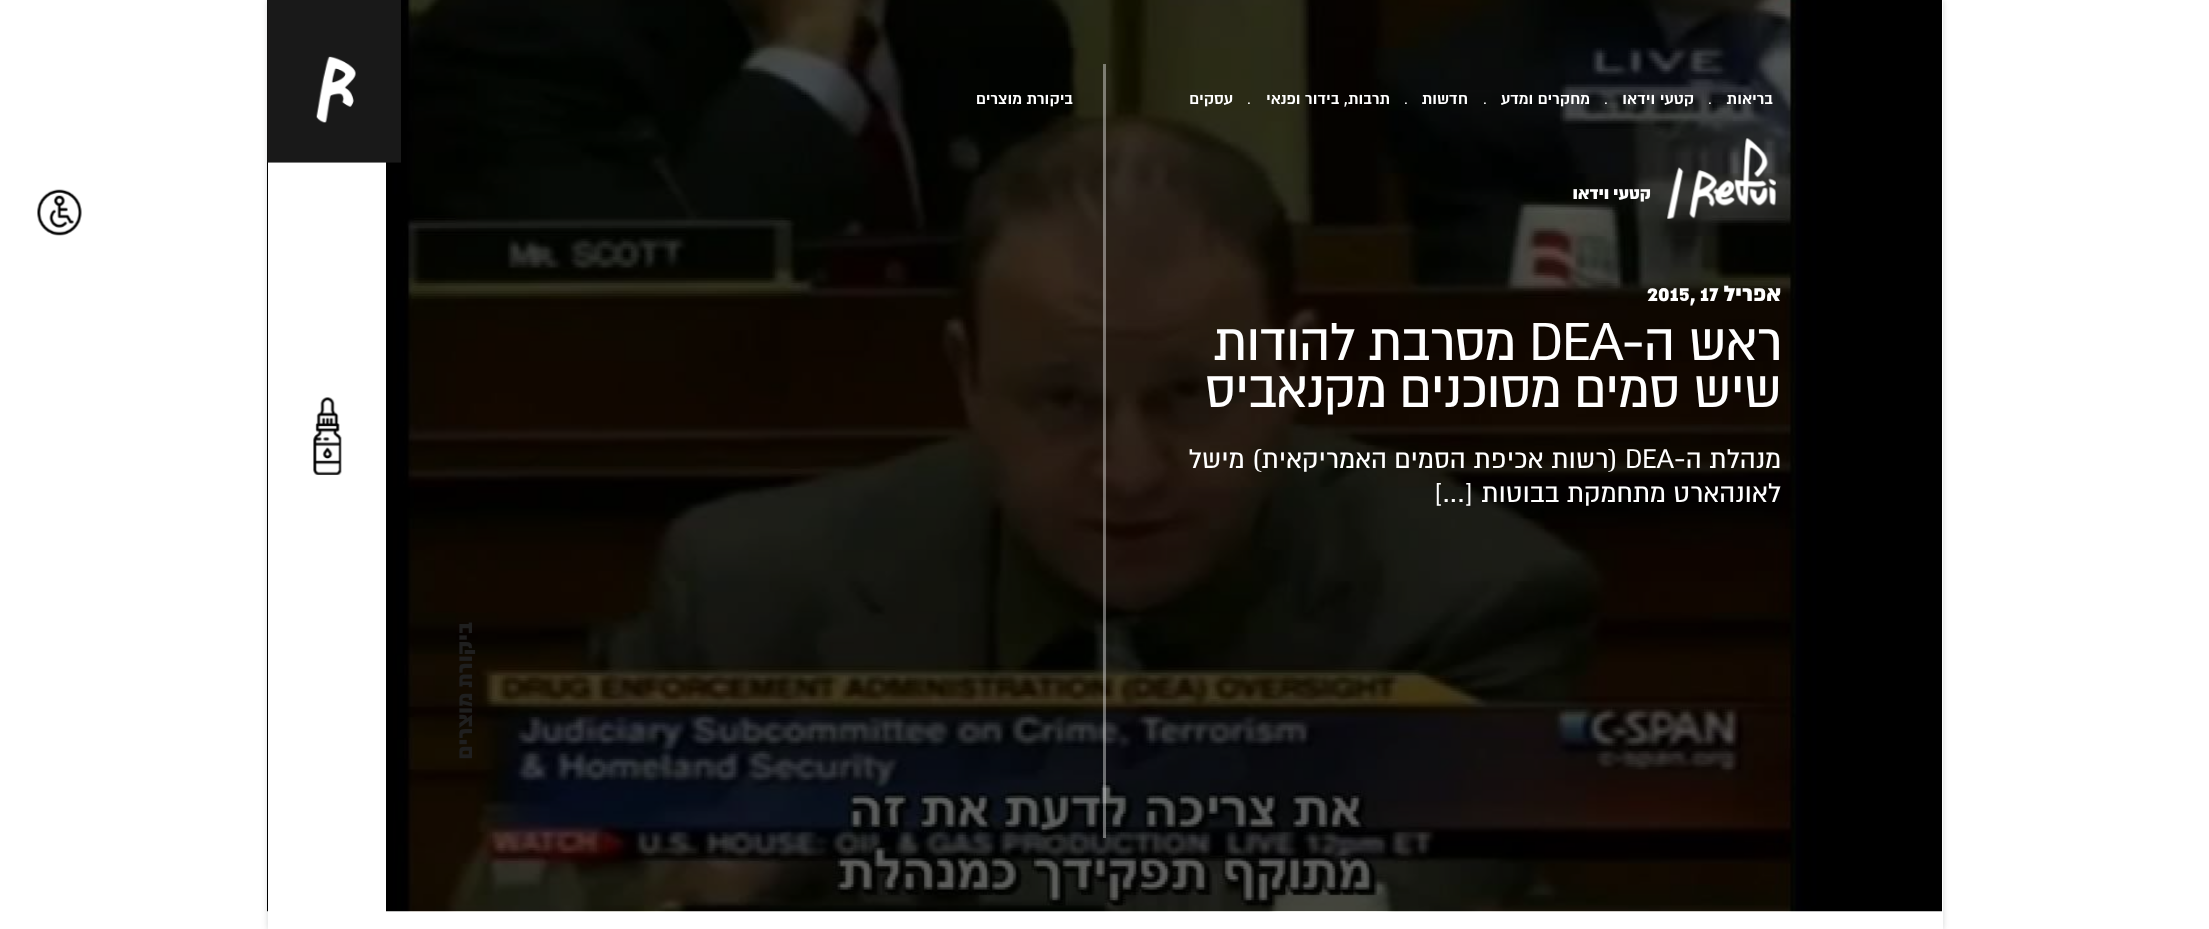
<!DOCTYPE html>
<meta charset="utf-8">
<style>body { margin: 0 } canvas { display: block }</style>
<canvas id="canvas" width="2209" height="929"></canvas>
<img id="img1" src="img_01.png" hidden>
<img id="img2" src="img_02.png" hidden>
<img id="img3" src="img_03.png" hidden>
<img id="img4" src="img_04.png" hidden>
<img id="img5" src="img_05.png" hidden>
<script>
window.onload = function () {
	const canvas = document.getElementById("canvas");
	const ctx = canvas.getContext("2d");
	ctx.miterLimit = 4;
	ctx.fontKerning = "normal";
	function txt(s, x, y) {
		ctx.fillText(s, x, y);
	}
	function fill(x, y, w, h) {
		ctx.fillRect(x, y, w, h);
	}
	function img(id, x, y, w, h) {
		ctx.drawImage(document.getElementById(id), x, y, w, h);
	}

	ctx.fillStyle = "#FFFFFF";
	fill(0, 0, 2209, 929);
	ctx.save();
	ctx.beginPath();
	ctx.moveTo(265, 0);
	ctx.lineTo(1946, 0);
	ctx.lineTo(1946, 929);
	ctx.lineTo(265, 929);
	ctx.closePath();
	ctx.moveTo(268, 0);
	ctx.lineTo(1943, 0);
	ctx.lineTo(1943, 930);
	ctx.lineTo(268, 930);
	ctx.closePath();
	ctx.clip("evenodd");
	ctx.fillStyle = "rgba(35, 39, 43, 0.2)";
	ctx.filter = "blur(0.5px)";
	ctx.beginPath();
	ctx.rect(268, 0, 1675, 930);
	ctx.fill();
	ctx.filter = "none";
	ctx.restore();
	ctx.save();
	ctx.beginPath();
	ctx.moveTo(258, 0);
	ctx.lineTo(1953, 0);
	ctx.lineTo(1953, 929);
	ctx.lineTo(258, 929);
	ctx.closePath();
	ctx.moveTo(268, 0);
	ctx.lineTo(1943, 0);
	ctx.lineTo(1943, 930);
	ctx.lineTo(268, 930);
	ctx.closePath();
	ctx.clip("evenodd");
	ctx.fillStyle = "rgba(35, 39, 43, 0.2)";
	ctx.filter = "blur(3px)";
	ctx.beginPath();
	ctx.rect(268, 0, 1675, 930);
	ctx.fill();
	ctx.filter = "none";
	ctx.restore();
	img("img1", 267, 0, 1675, 912);
	img("img2", 1667, 138, 109, 81);
	ctx.fillStyle = "rgba(255, 255, 255, 0.4)";
	fill(1103, 64, 3, 774);
	ctx.fillStyle = "#FFFFFF";
	fill(268, 56, 118, 856);
	img("img3", 267, 0, 134, 163);
	img("img4", 313, 397, 29, 78);
	img("img5", 37, 189, 45, 47);
	ctx.direction = "rtl";
	ctx.font = "bold 17.5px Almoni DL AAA";
	txt("בריאות", 1773, 104);
	ctx.direction = "ltr";
	ctx.font = "16px Almoni DL AAA";
	txt(".", 1708, 104);
	ctx.direction = "rtl";
	ctx.font = "bold 17.5px Almoni DL AAA";
	txt("קטעי וידאו", 1694, 104);
	ctx.direction = "ltr";
	ctx.font = "16px Almoni DL AAA";
	txt(".", 1604, 104);
	ctx.direction = "rtl";
	ctx.font = "bold 17.5px Almoni DL AAA";
	txt("מחקרים ומדע", 1590, 104);
	ctx.direction = "ltr";
	ctx.font = "16px Almoni DL AAA";
	txt(".", 1483, 104);
	ctx.direction = "rtl";
	ctx.font = "bold 17.5px Almoni DL AAA";
	txt("חדשות", 1468, 104);
	ctx.direction = "ltr";
	ctx.font = "16px Almoni DL AAA";
	txt(".", 1404, 104);
	ctx.direction = "rtl";
	ctx.font = "bold 17.5px Almoni DL AAA";
	txt("תרבות, בידור ופנאי", 1390, 104);
	ctx.direction = "ltr";
	ctx.font = "16px Almoni DL AAA";
	txt(".", 1247, 104);
	ctx.direction = "rtl";
	ctx.font = "bold 17.5px Almoni DL AAA";
	txt("עסקים", 1233, 104);
	txt("ביקורת מוצרים", 1073, 104);
	ctx.font = "900 19px Almoni DL AAA";
	txt("קטעי וידאו", 1651, 199);
	ctx.font = "900 24.5px Almoni DL AAA";
	txt("אפריל", 1781, 301);
	ctx.direction = "ltr";
	txt(", 17", 1690, 301);
	txt("2015", 1647, 301);
	ctx.letterSpacing = "-1.2px";
	ctx.direction = "rtl";
	ctx.font = "59.4px Almoni DL AAA";
	txt("ראש ה-", 1781, 360);
	ctx.direction = "ltr";
	txt("DEA", 1529, 360);
	ctx.direction = "rtl";
	txt("מסרבת להודות", 1515, 360);
	txt("שיש סמים מסוכנים מקנאביס", 1781, 407);
	ctx.letterSpacing = "-0.05px";
	ctx.font = "30.1px Almoni DL AAA";
	txt("מנהלת ה-", 1781, 468);
	ctx.direction = "ltr";
	txt("DEA", 1625, 468);
	ctx.direction = "rtl";
	txt("(רשות אכיפת הסמים האמריקאית) מישל", 1618, 468);
	txt("לאונהארט מתחמקת בבוטות […]", 1781, 502);
	ctx.letterSpacing = "0px";
	ctx.font = "900 24.5px Almoni DL AAA";
	ctx.fillStyle = "#1F1F1F";
	ctx.save();
	ctx.translate(472, 622);
	ctx.rotate(-90 * Math.PI / 180);
	ctx.fillText("ביקורת מוצרים", 0, 0);
	ctx.restore();
};
</script>
